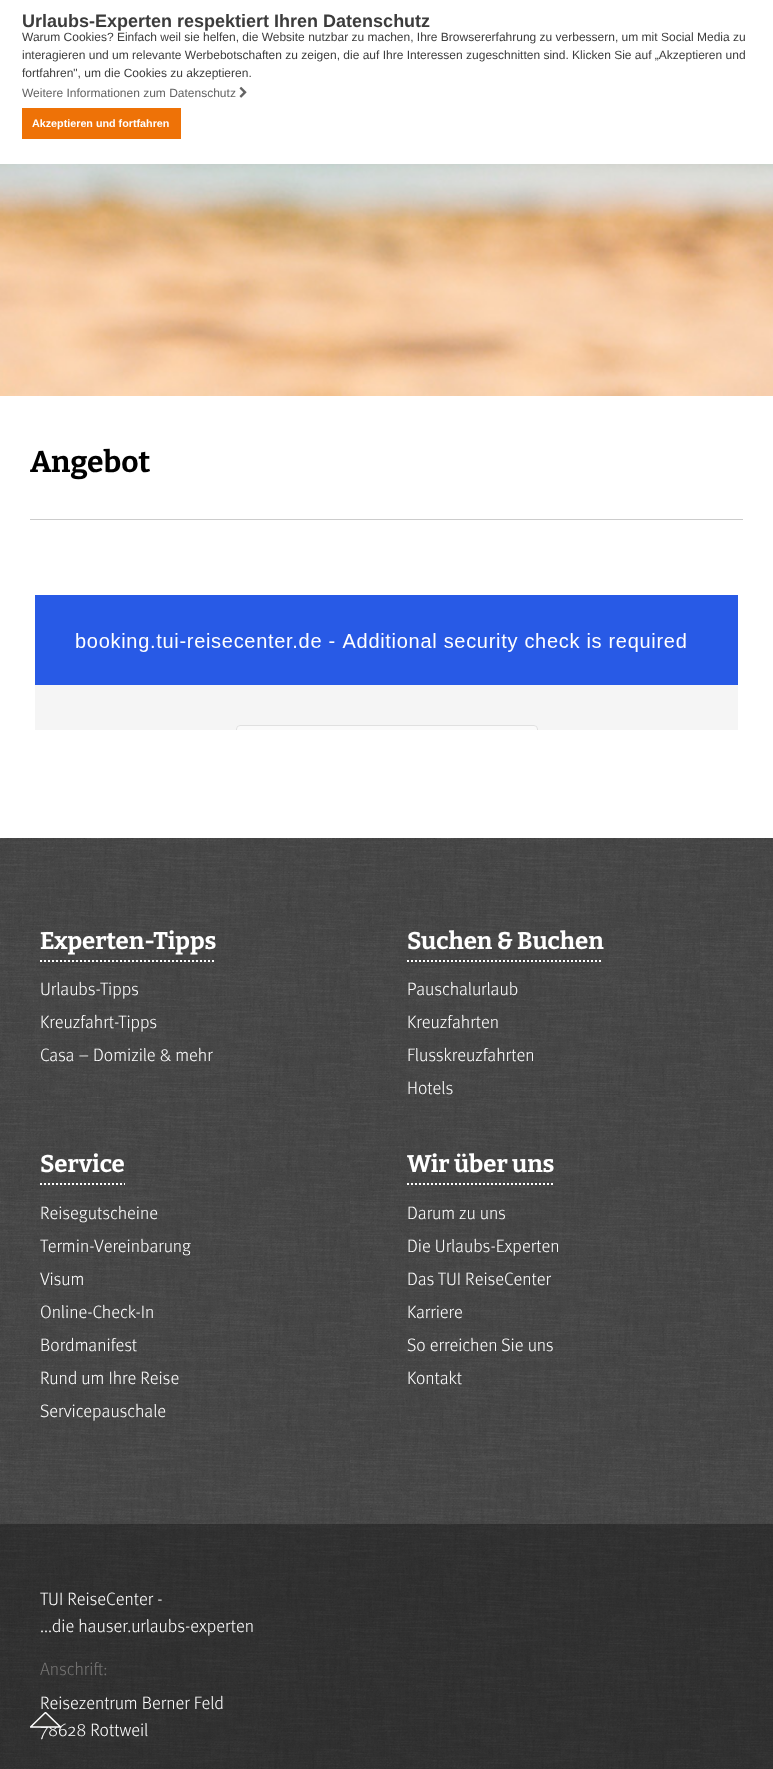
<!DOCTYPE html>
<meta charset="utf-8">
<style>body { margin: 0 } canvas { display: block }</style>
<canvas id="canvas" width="773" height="1769"></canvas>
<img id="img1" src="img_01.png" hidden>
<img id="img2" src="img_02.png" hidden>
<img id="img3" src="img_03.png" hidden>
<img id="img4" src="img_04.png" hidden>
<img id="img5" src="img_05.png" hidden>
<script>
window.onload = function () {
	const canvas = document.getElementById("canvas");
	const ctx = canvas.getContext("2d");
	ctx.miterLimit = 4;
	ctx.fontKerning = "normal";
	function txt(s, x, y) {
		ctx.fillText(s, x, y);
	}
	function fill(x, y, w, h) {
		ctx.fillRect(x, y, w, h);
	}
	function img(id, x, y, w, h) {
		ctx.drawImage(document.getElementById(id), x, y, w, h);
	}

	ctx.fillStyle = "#FFFFFF";
	fill(0, 0, 773, 1769);
	img("img1", 239, 86, 8, 12);
	ctx.fillStyle = "#EE7207";
	fill(22, 108, 159, 31);
	img("img2", 0, 164, 773, 232);
	ctx.fillStyle = "#CCCCCC";
	fill(30, 519, 713, 1);
	img("img3", 35, 595, 703, 135);
	img("img4", 0, 838, 773, 686);
	ctx.beginPath();
	ctx.moveTo(40, 961);
	ctx.lineTo(216, 961);
	ctx.strokeStyle = "#FFFFFF";
	ctx.lineWidth = 2;
	ctx.setLineDash([2, 2]);
	ctx.stroke();
	ctx.beginPath();
	ctx.moveTo(407, 961);
	ctx.lineTo(603, 961);
	ctx.stroke();
	ctx.beginPath();
	ctx.moveTo(40, 1184);
	ctx.lineTo(125, 1184);
	ctx.stroke();
	ctx.beginPath();
	ctx.moveTo(407, 1184);
	ctx.lineTo(554, 1184);
	ctx.stroke();
	img("img5", 0, 1524, 773, 245);
	ctx.font = "bold 18px Liberation Sans";
	ctx.fillStyle = "#3C3C3C";
	txt("Urlaubs-Experten respektiert Ihren Datenschutz", 22, 27);
	ctx.font = "12px Liberation Sans";
	txt("Warum Cookies? Einfach weil sie helfen, die Website nutzbar zu machen, Ihre Browsererfahrung zu verbessern, um mit Social Media zu", 22, 41);
	txt("interagieren und um relevante Werbebotschaften zu zeigen, die auf Ihre Interessen zugeschnitten sind. Klicken Sie auf „Akzeptieren und", 22, 59);
	txt("fortfahren\", um die Cookies zu akzeptieren.", 22, 77);
	ctx.fillStyle = "#636363";
	txt("Weitere Informationen zum Datenschutz", 22, 97);
	ctx.font = "bold 10.75px Liberation Sans";
	ctx.fillStyle = "#FFFFFF";
	txt("Akzeptieren und fortfahren", 32, 127);
	ctx.font = "bold 30px Bitter";
	ctx.fillStyle = "#000000";
	txt("Angebot", 30, 472);
	ctx.font = "bold 24px Bitter";
	ctx.fillStyle = "#FFFFFF";
	txt("Experten-Tipps", 40, 949);
	ctx.font = "300 18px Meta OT";
	txt("Urlaubs-Tipps", 40, 995);
	txt("Kreuzfahrt-Tipps", 40, 1028);
	txt("Casa – Domizile & mehr", 40, 1061);
	ctx.font = "bold 24px Bitter";
	txt("Suchen & Buchen", 407, 949);
	ctx.font = "300 18px Meta OT";
	txt("Pauschalurlaub", 407, 995);
	txt("Kreuzfahrten", 407, 1028);
	txt("Flusskreuzfahrten", 407, 1061);
	txt("Hotels", 407, 1094);
	ctx.font = "bold 24px Bitter";
	txt("Service", 40, 1172);
	ctx.font = "300 18px Meta OT";
	txt("Reisegutscheine", 40, 1219);
	txt("Termin-Vereinbarung", 40, 1252);
	txt("Visum", 40, 1285);
	txt("Online-Check-In", 40, 1318);
	txt("Bordmanifest", 40, 1351);
	txt("Rund um Ihre Reise", 40, 1384);
	txt("Servicepauschale", 40, 1417);
	ctx.font = "bold 24px Bitter";
	txt("Wir über uns", 407, 1172);
	ctx.font = "300 18px Meta OT";
	txt("Darum zu uns", 407, 1219);
	txt("Die Urlaubs-Experten", 407, 1252);
	txt("Das TUI ReiseCenter", 407, 1285);
	txt("Karriere", 407, 1318);
	txt("So erreichen Sie uns", 407, 1351);
	txt("Kontakt", 407, 1384);
	txt("TUI ReiseCenter -", 40, 1605);
	txt("...die hauser.urlaubs-experten", 40, 1632);
	ctx.fillStyle = "#757473";
	txt("Anschrift:", 40, 1675);
	ctx.fillStyle = "#FFFFFF";
	txt("Reisezentrum Berner Feld", 40, 1709);
	txt("78628 Rottweil", 40, 1736);
	ctx.fillStyle = "#373634";
	ctx.beginPath();
	ctx.moveTo(30.5, 1727);
	ctx.lineTo(60.5, 1727);
	ctx.lineTo(45.5, 1712.5);
	ctx.closePath();
	ctx.fill();
	ctx.save();
	ctx.beginPath();
	ctx.rect(30, 1712, 31, 16);
	ctx.clip();
	ctx.beginPath();
	ctx.moveTo(30.5, 1727);
	ctx.lineTo(60.5, 1727);
	ctx.lineTo(45.5, 1712.5);
	ctx.closePath();
	ctx.lineWidth = 1.5;
	ctx.lineCap = "round";
	ctx.lineJoin = "round";
	ctx.setLineDash([]);
	ctx.stroke();
	ctx.restore();
};
</script>
